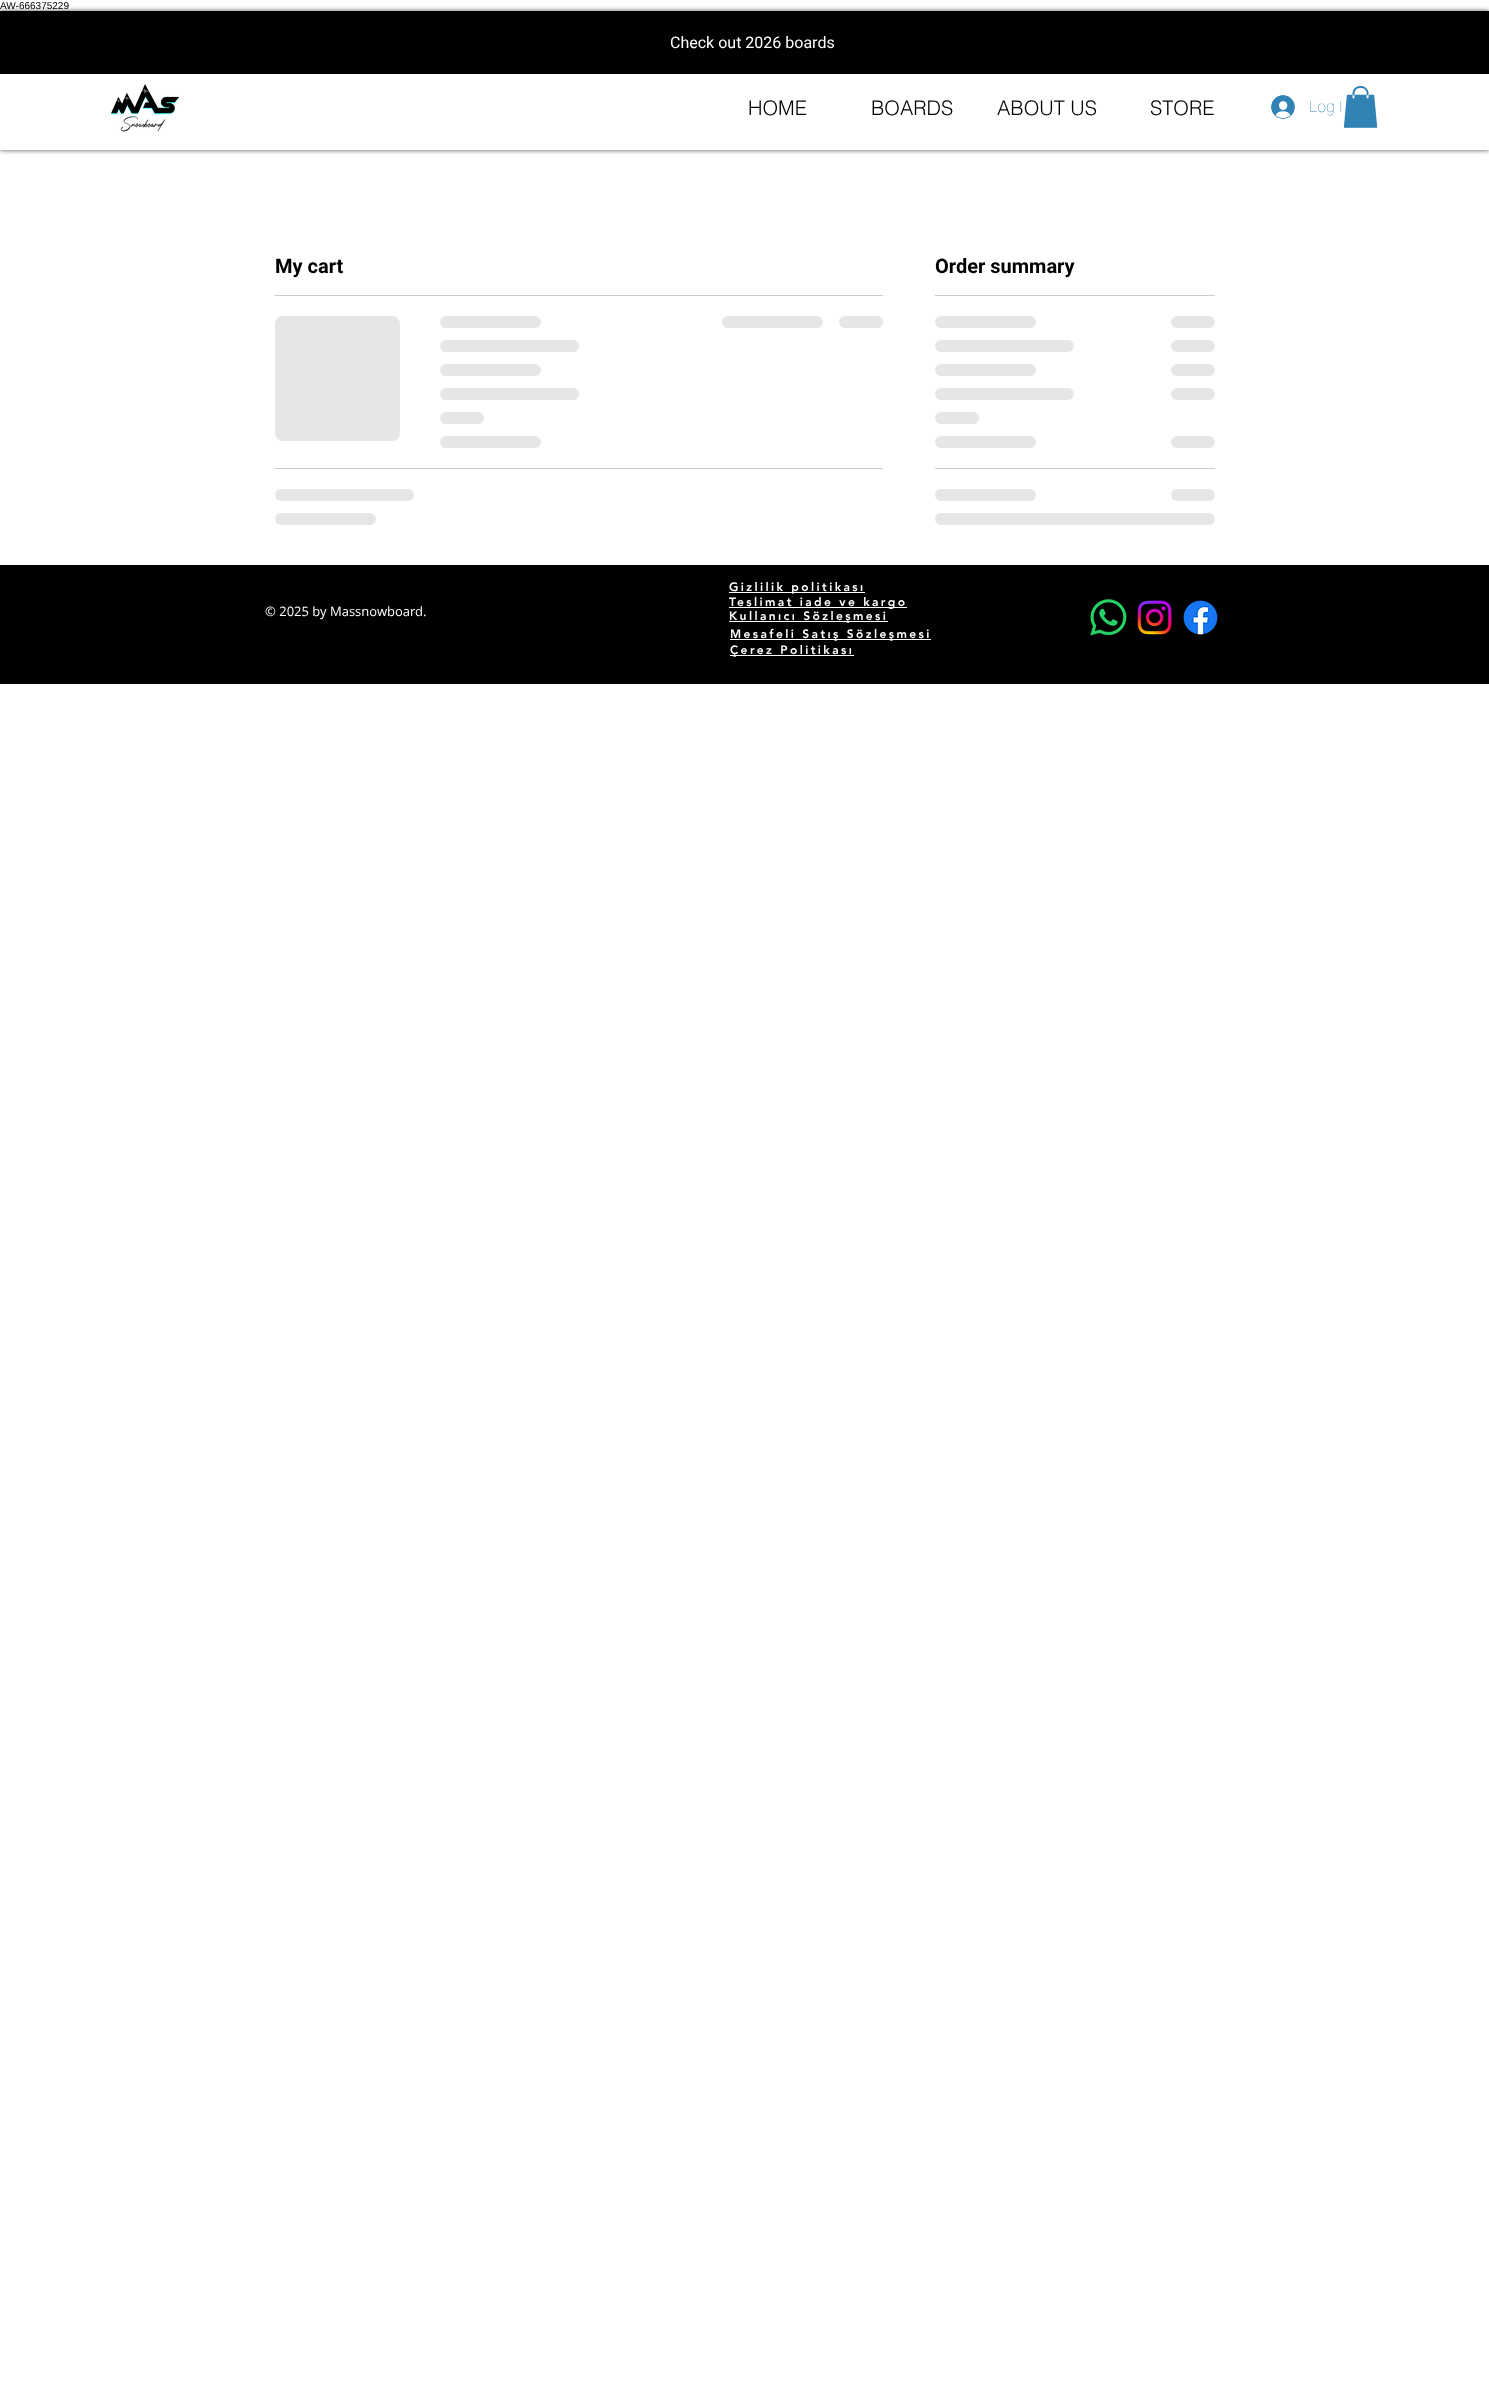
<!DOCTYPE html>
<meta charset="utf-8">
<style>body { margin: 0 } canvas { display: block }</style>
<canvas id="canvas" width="1489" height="2407"></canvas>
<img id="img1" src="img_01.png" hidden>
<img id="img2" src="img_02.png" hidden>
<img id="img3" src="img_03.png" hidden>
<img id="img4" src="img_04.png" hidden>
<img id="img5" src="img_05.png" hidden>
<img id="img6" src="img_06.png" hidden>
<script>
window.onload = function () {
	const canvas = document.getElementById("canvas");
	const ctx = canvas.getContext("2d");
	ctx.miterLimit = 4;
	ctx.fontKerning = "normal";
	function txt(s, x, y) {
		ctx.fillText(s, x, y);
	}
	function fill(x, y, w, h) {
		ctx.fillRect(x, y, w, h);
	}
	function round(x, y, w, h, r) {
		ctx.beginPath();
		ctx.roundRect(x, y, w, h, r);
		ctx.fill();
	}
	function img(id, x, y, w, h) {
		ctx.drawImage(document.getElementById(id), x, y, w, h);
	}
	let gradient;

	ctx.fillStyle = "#FFFFFF";
	fill(0, 0, 1489, 2407);
	ctx.save();
	ctx.beginPath();
	ctx.moveTo(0, 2);
	ctx.lineTo(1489, 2);
	ctx.lineTo(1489, 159);
	ctx.lineTo(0, 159);
	ctx.closePath();
	ctx.moveTo(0, 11);
	ctx.lineTo(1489, 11);
	ctx.lineTo(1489, 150);
	ctx.lineTo(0, 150);
	ctx.closePath();
	ctx.clip("evenodd");
	ctx.fillStyle = "rgba(0, 0, 0, 0.7)";
	ctx.filter = "blur(2.5px)";
	ctx.beginPath();
	ctx.rect(0, 11, 1489, 139);
	ctx.fill();
	ctx.filter = "none";
	ctx.restore();
	ctx.fillStyle = "#000000";
	fill(0, 11, 1489, 63);
	img("img1", 110, 84, 69, 48);
	img("img2", 1271, 95, 24, 24);
	img("img3", 1343, 86, 35, 42);
	ctx.fillStyle = "#CCCCCC";
	fill(275, 295, 608, 1);
	gradient = ctx.createLinearGradient(275, 379, 775, 379);
	gradient.addColorStop(0.25, "#E6E6E6");
	gradient.addColorStop(0.37, "#CCCCCC");
	gradient.addColorStop(0.63, "#E6E6E6");
	ctx.fillStyle = gradient;
	round(275, 316, 125, 125, 8);
	gradient = ctx.createLinearGradient(440, 322, 844, 322);
	gradient.addColorStop(0.25, "#E6E6E6");
	gradient.addColorStop(0.37, "#CCCCCC");
	gradient.addColorStop(0.63, "#E6E6E6");
	ctx.fillStyle = gradient;
	round(440, 316, 101, 12, 6);
	gradient = ctx.createLinearGradient(440, 346, 996, 346);
	gradient.addColorStop(0.25, "#E6E6E6");
	gradient.addColorStop(0.37, "#CCCCCC");
	gradient.addColorStop(0.63, "#E6E6E6");
	ctx.fillStyle = gradient;
	round(440, 340, 139, 12, 6);
	gradient = ctx.createLinearGradient(440, 370, 844, 370);
	gradient.addColorStop(0.25, "#E6E6E6");
	gradient.addColorStop(0.37, "#CCCCCC");
	gradient.addColorStop(0.63, "#E6E6E6");
	ctx.fillStyle = gradient;
	round(440, 364, 101, 12, 6);
	gradient = ctx.createLinearGradient(440, 394, 996, 394);
	gradient.addColorStop(0.25, "#E6E6E6");
	gradient.addColorStop(0.37, "#CCCCCC");
	gradient.addColorStop(0.63, "#E6E6E6");
	ctx.fillStyle = gradient;
	round(440, 388, 139, 12, 6);
	gradient = ctx.createLinearGradient(440, 418, 616, 418);
	gradient.addColorStop(0.25, "#E6E6E6");
	gradient.addColorStop(0.37, "#CCCCCC");
	gradient.addColorStop(0.63, "#E6E6E6");
	ctx.fillStyle = gradient;
	round(440, 412, 44, 12, 6);
	gradient = ctx.createLinearGradient(440, 442, 844, 442);
	gradient.addColorStop(0.25, "#E6E6E6");
	gradient.addColorStop(0.37, "#CCCCCC");
	gradient.addColorStop(0.63, "#E6E6E6");
	ctx.fillStyle = gradient;
	round(440, 436, 101, 12, 6);
	gradient = ctx.createLinearGradient(722, 322, 1126, 322);
	gradient.addColorStop(0.25, "#E6E6E6");
	gradient.addColorStop(0.37, "#CCCCCC");
	gradient.addColorStop(0.63, "#E6E6E6");
	ctx.fillStyle = gradient;
	round(722, 316, 101, 12, 6);
	gradient = ctx.createLinearGradient(839, 322, 1015, 322);
	gradient.addColorStop(0.25, "#E6E6E6");
	gradient.addColorStop(0.37, "#CCCCCC");
	gradient.addColorStop(0.63, "#E6E6E6");
	ctx.fillStyle = gradient;
	round(839, 316, 44, 12, 6);
	ctx.fillStyle = "#CCCCCC";
	fill(275, 468, 608, 1);
	gradient = ctx.createLinearGradient(275, 495, 831, 495);
	gradient.addColorStop(0.25, "#E6E6E6");
	gradient.addColorStop(0.37, "#CCCCCC");
	gradient.addColorStop(0.63, "#E6E6E6");
	ctx.fillStyle = gradient;
	round(275, 489, 139, 12, 6);
	gradient = ctx.createLinearGradient(275, 519, 679, 519);
	gradient.addColorStop(0.25, "#E6E6E6");
	gradient.addColorStop(0.37, "#CCCCCC");
	gradient.addColorStop(0.63, "#E6E6E6");
	ctx.fillStyle = gradient;
	round(275, 513, 101, 12, 6);
	ctx.fillStyle = "#CCCCCC";
	fill(935, 295, 280, 1);
	gradient = ctx.createLinearGradient(935, 322, 1339, 322);
	gradient.addColorStop(0.25, "#E6E6E6");
	gradient.addColorStop(0.37, "#CCCCCC");
	gradient.addColorStop(0.63, "#E6E6E6");
	ctx.fillStyle = gradient;
	round(935, 316, 101, 12, 6);
	gradient = ctx.createLinearGradient(1171, 322, 1347, 322);
	gradient.addColorStop(0.25, "#E6E6E6");
	gradient.addColorStop(0.37, "#CCCCCC");
	gradient.addColorStop(0.63, "#E6E6E6");
	ctx.fillStyle = gradient;
	round(1171, 316, 44, 12, 6);
	gradient = ctx.createLinearGradient(935, 346, 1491, 346);
	gradient.addColorStop(0.25, "#E6E6E6");
	gradient.addColorStop(0.37, "#CCCCCC");
	gradient.addColorStop(0.63, "#E6E6E6");
	ctx.fillStyle = gradient;
	round(935, 340, 139, 12, 6);
	gradient = ctx.createLinearGradient(1171, 346, 1347, 346);
	gradient.addColorStop(0.25, "#E6E6E6");
	gradient.addColorStop(0.37, "#CCCCCC");
	gradient.addColorStop(0.63, "#E6E6E6");
	ctx.fillStyle = gradient;
	round(1171, 340, 44, 12, 6);
	gradient = ctx.createLinearGradient(935, 370, 1339, 370);
	gradient.addColorStop(0.25, "#E6E6E6");
	gradient.addColorStop(0.37, "#CCCCCC");
	gradient.addColorStop(0.63, "#E6E6E6");
	ctx.fillStyle = gradient;
	round(935, 364, 101, 12, 6);
	gradient = ctx.createLinearGradient(1171, 370, 1347, 370);
	gradient.addColorStop(0.25, "#E6E6E6");
	gradient.addColorStop(0.37, "#CCCCCC");
	gradient.addColorStop(0.63, "#E6E6E6");
	ctx.fillStyle = gradient;
	round(1171, 364, 44, 12, 6);
	gradient = ctx.createLinearGradient(935, 394, 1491, 394);
	gradient.addColorStop(0.25, "#E6E6E6");
	gradient.addColorStop(0.37, "#CCCCCC");
	gradient.addColorStop(0.63, "#E6E6E6");
	ctx.fillStyle = gradient;
	round(935, 388, 139, 12, 6);
	gradient = ctx.createLinearGradient(1171, 394, 1347, 394);
	gradient.addColorStop(0.25, "#E6E6E6");
	gradient.addColorStop(0.37, "#CCCCCC");
	gradient.addColorStop(0.63, "#E6E6E6");
	ctx.fillStyle = gradient;
	round(1171, 388, 44, 12, 6);
	gradient = ctx.createLinearGradient(935, 418, 1111, 418);
	gradient.addColorStop(0.25, "#E6E6E6");
	gradient.addColorStop(0.37, "#CCCCCC");
	gradient.addColorStop(0.63, "#E6E6E6");
	ctx.fillStyle = gradient;
	round(935, 412, 44, 12, 6);
	gradient = ctx.createLinearGradient(935, 442, 1339, 442);
	gradient.addColorStop(0.25, "#E6E6E6");
	gradient.addColorStop(0.37, "#CCCCCC");
	gradient.addColorStop(0.63, "#E6E6E6");
	ctx.fillStyle = gradient;
	round(935, 436, 101, 12, 6);
	gradient = ctx.createLinearGradient(1171, 442, 1347, 442);
	gradient.addColorStop(0.25, "#E6E6E6");
	gradient.addColorStop(0.37, "#CCCCCC");
	gradient.addColorStop(0.63, "#E6E6E6");
	ctx.fillStyle = gradient;
	round(1171, 436, 44, 12, 6);
	ctx.fillStyle = "#CCCCCC";
	fill(935, 468, 280, 1);
	gradient = ctx.createLinearGradient(935, 495, 1339, 495);
	gradient.addColorStop(0.25, "#E6E6E6");
	gradient.addColorStop(0.37, "#CCCCCC");
	gradient.addColorStop(0.63, "#E6E6E6");
	ctx.fillStyle = gradient;
	round(935, 489, 101, 12, 6);
	gradient = ctx.createLinearGradient(1171, 495, 1347, 495);
	gradient.addColorStop(0.25, "#E6E6E6");
	gradient.addColorStop(0.37, "#CCCCCC");
	gradient.addColorStop(0.63, "#E6E6E6");
	ctx.fillStyle = gradient;
	round(1171, 489, 44, 12, 6);
	gradient = ctx.createLinearGradient(935, 519, 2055, 519);
	gradient.addColorStop(0.25, "#E6E6E6");
	gradient.addColorStop(0.37, "#CCCCCC");
	gradient.addColorStop(0.63, "#E6E6E6");
	ctx.fillStyle = gradient;
	round(935, 513, 280, 12, 6);
	ctx.fillStyle = "#000000";
	fill(0, 565, 1489, 119);
	ctx.fillStyle = "#FFFFFF";
	fill(729, 592, 136, 1);
	fill(729, 607, 178, 1);
	img("img4", 1090, 599, 37, 37);
	img("img5", 1137, 600, 35, 35);
	img("img6", 1183, 600, 35, 35);
	fill(729, 621, 159, 1);
	fill(730, 639, 201, 1);
	fill(730, 655, 124, 1);
	ctx.font = "10px Liberation Sans";
	ctx.fillStyle = "#000000";
	txt("AW-666375229", 0, 9);
	ctx.font = "16px Heebo";
	ctx.fillStyle = "#FFFFFF";
	txt("Check out 2026 boards", 670, 48);
	ctx.font = "300 20px helvetica";
	ctx.fillStyle = "#000000";
	txt("HOME", 748, 115);
	txt("BOARDS", 871, 115);
	txt("ABOUT US", 997, 115);
	txt("STORE", 1150, 115);
	ctx.font = "100 16px Roboto";
	ctx.fillStyle = "#3182B5";
	txt("Log I", 1309, 112);
	ctx.font = "bold 20px Roboto";
	ctx.fillStyle = "#000000";
	txt("My cart", 275, 273);
	txt("Order summary", 935, 273);
	ctx.letterSpacing = "2.4px";
	ctx.font = "900 12px 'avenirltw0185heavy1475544'";
	ctx.fillStyle = "#FFFFFF";
	txt("Gizlilik politikası", 729, 591);
	ctx.letterSpacing = "0px";
	ctx.font = "13px Open Sans";
	txt("© 2025 by Massnowboard.", 265, 616);
	ctx.letterSpacing = "2.4px";
	ctx.font = "900 12px 'avenirltw0185heavy1475544'";
	txt("Teslimat iade ve kargo", 729, 606);
	txt("Kullanıcı Sözleşmesi", 729, 620);
	txt("Mesafeli Satış Sözleşmesi", 730, 638);
	txt("Çerez Politikası", 730, 654);
};
</script>
